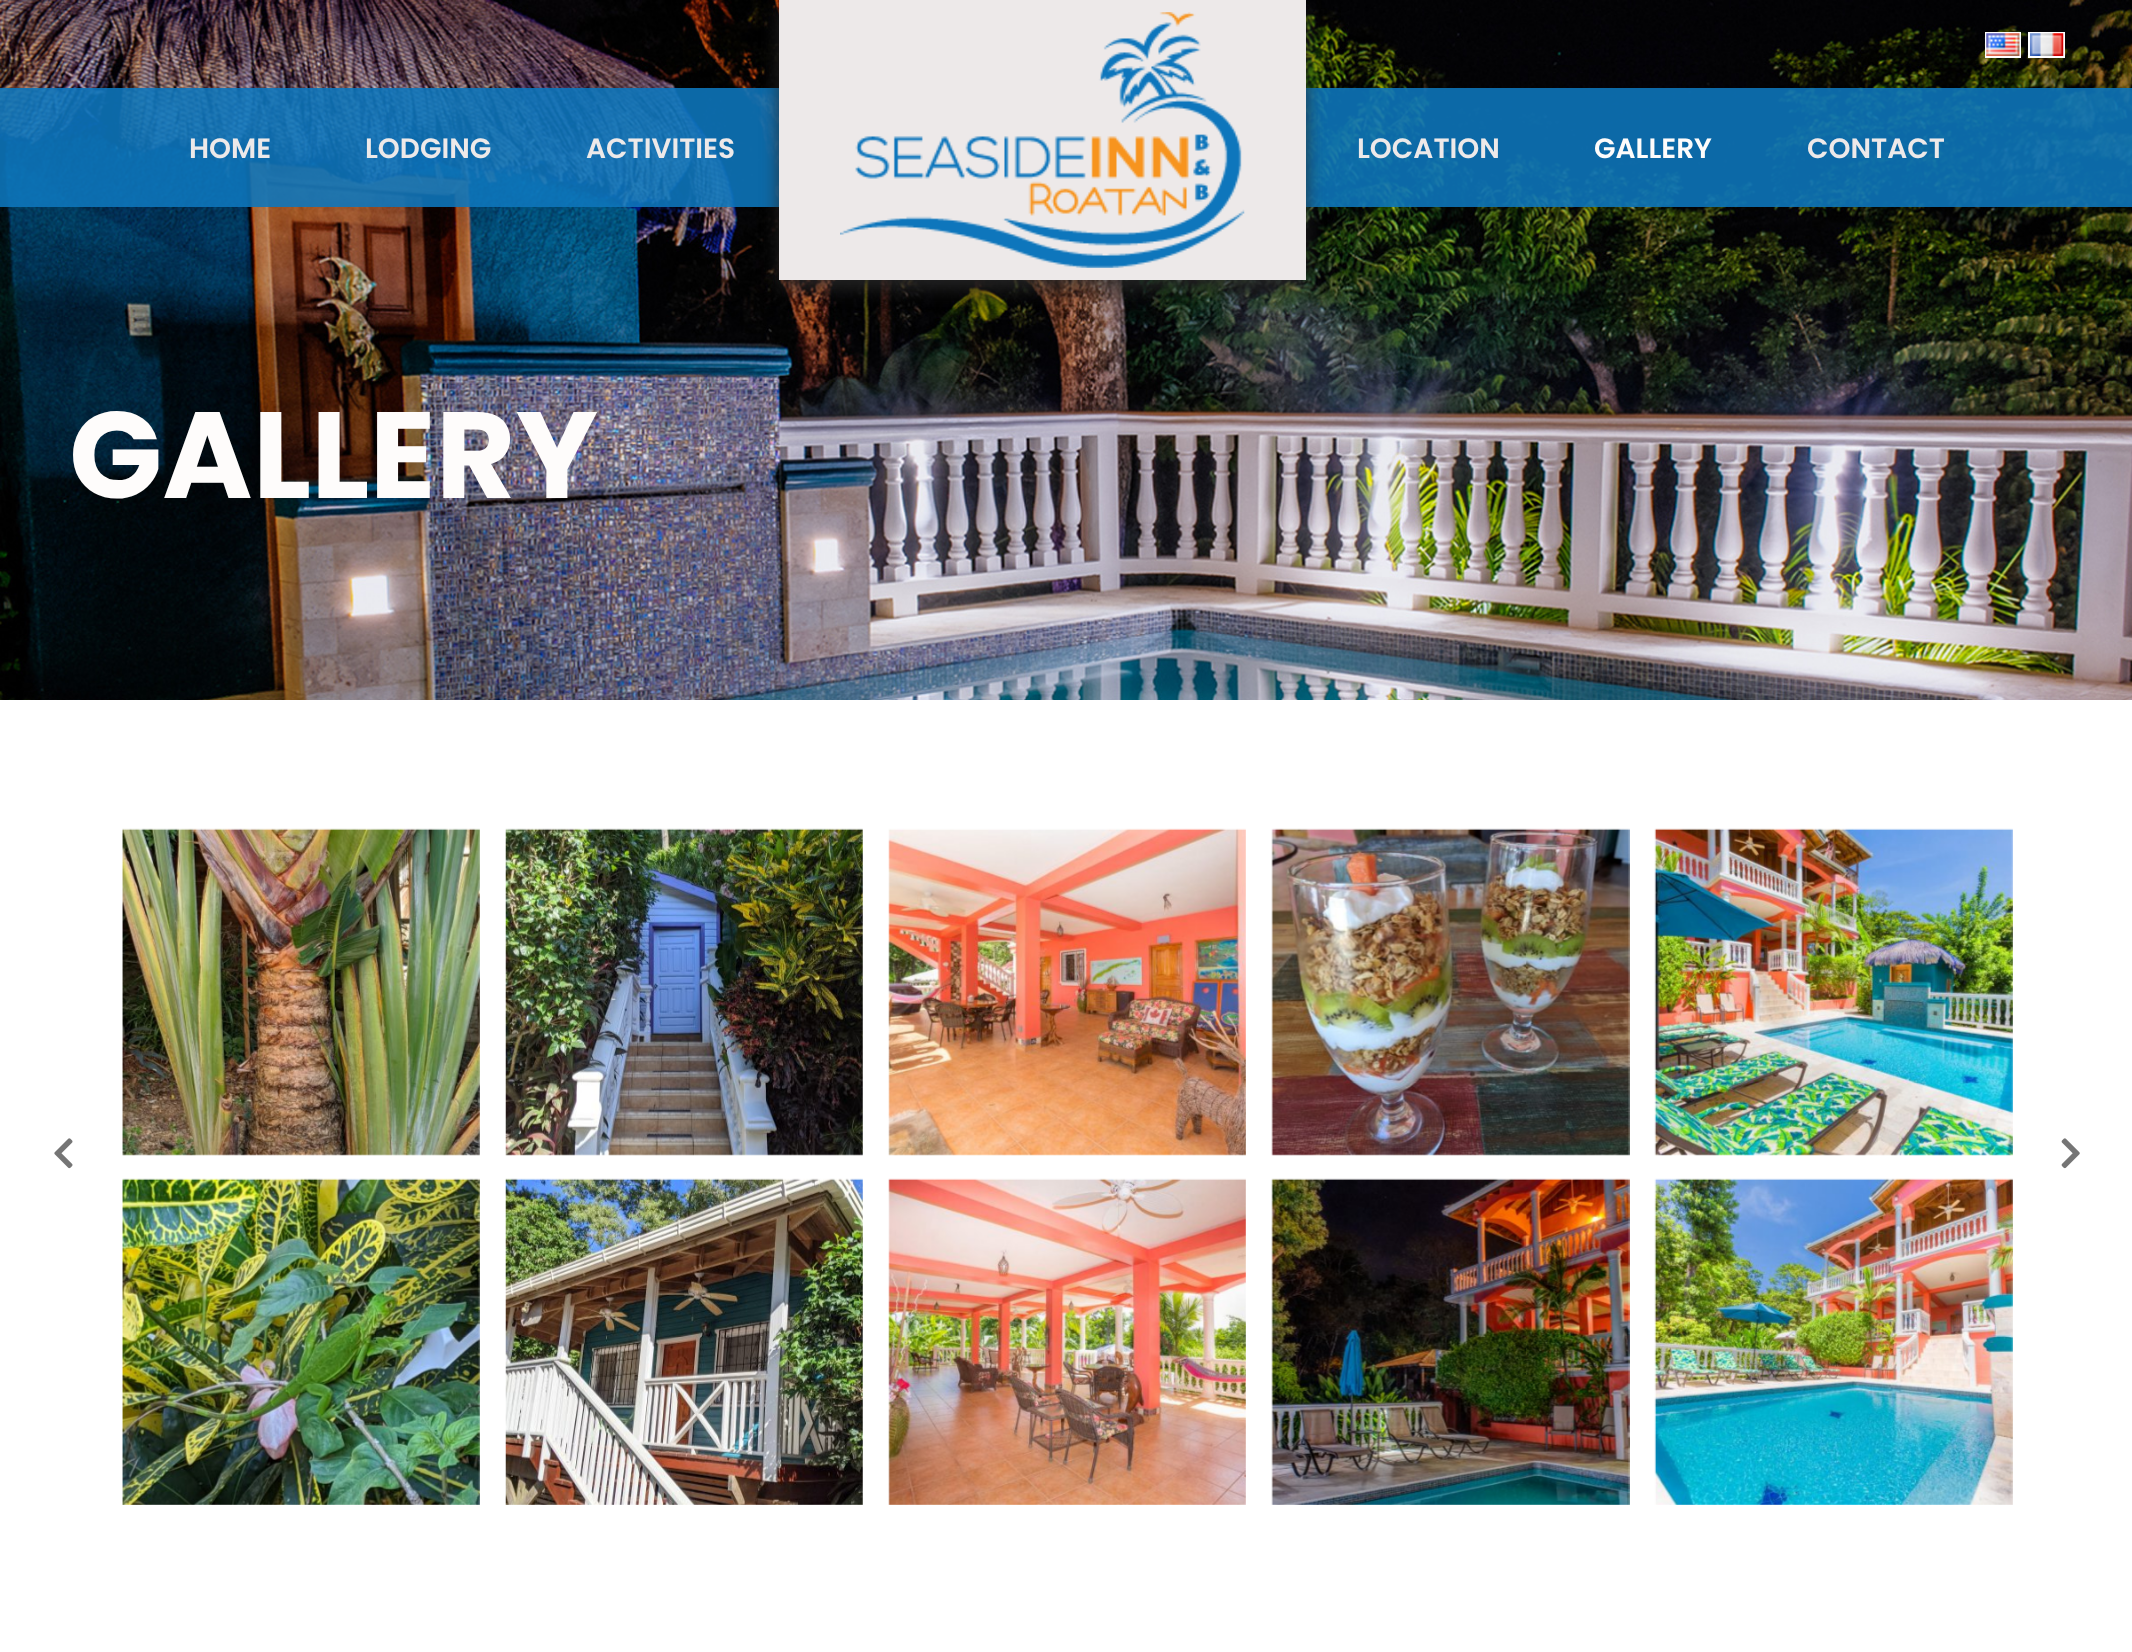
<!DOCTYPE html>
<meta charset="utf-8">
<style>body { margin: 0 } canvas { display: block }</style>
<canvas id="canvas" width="2132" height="1652"></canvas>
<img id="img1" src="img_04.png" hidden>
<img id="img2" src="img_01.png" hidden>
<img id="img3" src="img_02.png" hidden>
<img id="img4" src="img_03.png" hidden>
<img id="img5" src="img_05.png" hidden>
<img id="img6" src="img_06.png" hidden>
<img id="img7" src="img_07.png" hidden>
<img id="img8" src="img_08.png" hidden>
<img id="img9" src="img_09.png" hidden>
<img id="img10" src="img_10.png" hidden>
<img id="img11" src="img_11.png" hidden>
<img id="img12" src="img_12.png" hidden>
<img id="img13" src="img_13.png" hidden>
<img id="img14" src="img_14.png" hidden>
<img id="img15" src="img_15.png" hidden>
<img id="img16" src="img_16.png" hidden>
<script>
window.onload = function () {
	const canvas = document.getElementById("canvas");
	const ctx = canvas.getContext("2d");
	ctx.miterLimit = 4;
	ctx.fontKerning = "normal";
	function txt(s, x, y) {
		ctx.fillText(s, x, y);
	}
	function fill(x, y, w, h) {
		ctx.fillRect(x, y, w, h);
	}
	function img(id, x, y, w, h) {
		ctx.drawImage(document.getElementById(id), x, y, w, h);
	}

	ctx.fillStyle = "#FFFFFF";
	fill(0, 0, 2132, 1652);
	img("img1", 0, 0, 2132, 700);
	ctx.strokeStyle = "#FFFFFF";
	ctx.lineWidth = 2;
	ctx.strokeRect(1986, 33, 34, 24);
	img("img2", 1986, 33, 34, 23);
	ctx.strokeRect(2029, 33, 35, 24);
	img("img3", 2030, 33, 34, 23);
	ctx.fillStyle = "rgba(14, 118, 188, 0.89)";
	fill(0, 88, 2132, 119);
	ctx.fillStyle = "rgba(42, 42, 42, 0.8)";
	ctx.filter = "blur(9px)";
	ctx.beginPath();
	ctx.rect(779, 9, 527, 280);
	ctx.fill();
	ctx.filter = "none";
	ctx.fillStyle = "#EDE9E9";
	fill(779, 0, 527, 280);
	img("img4", 840, 12, 405, 256);
	img("img5", 122, 828, 358, 328);
	img("img6", 122, 1178, 358, 327);
	img("img7", 505, 828, 358, 328);
	img("img8", 505, 1178, 358, 327);
	img("img9", 888, 828, 358, 328);
	img("img10", 888, 1178, 358, 327);
	img("img11", 1271, 828, 359, 328);
	img("img12", 1271, 1178, 359, 327);
	img("img13", 1654, 828, 359, 328);
	img("img14", 1654, 1178, 359, 327);
	img("img15", 54, 1138, 19, 31);
	img("img16", 2061, 1138, 19, 31);
	ctx.font = "600 28px Poppins";
	txt("HOME", 189, 158);
	txt("LODGING", 365, 158);
	txt("ACTIVITIES", 586, 158);
	txt("LOCATION", 1357, 158);
	ctx.fillStyle = "#FEFCFB";
	txt("GALLERY", 1594, 158);
	ctx.fillStyle = "#EDE9E9";
	txt("CONTACT", 1807, 158);
	ctx.font = "bold 122.5px Poppins";
	ctx.fillStyle = "#FEFCFB";
	txt("GALLERY", 69, 498);
};
</script>
